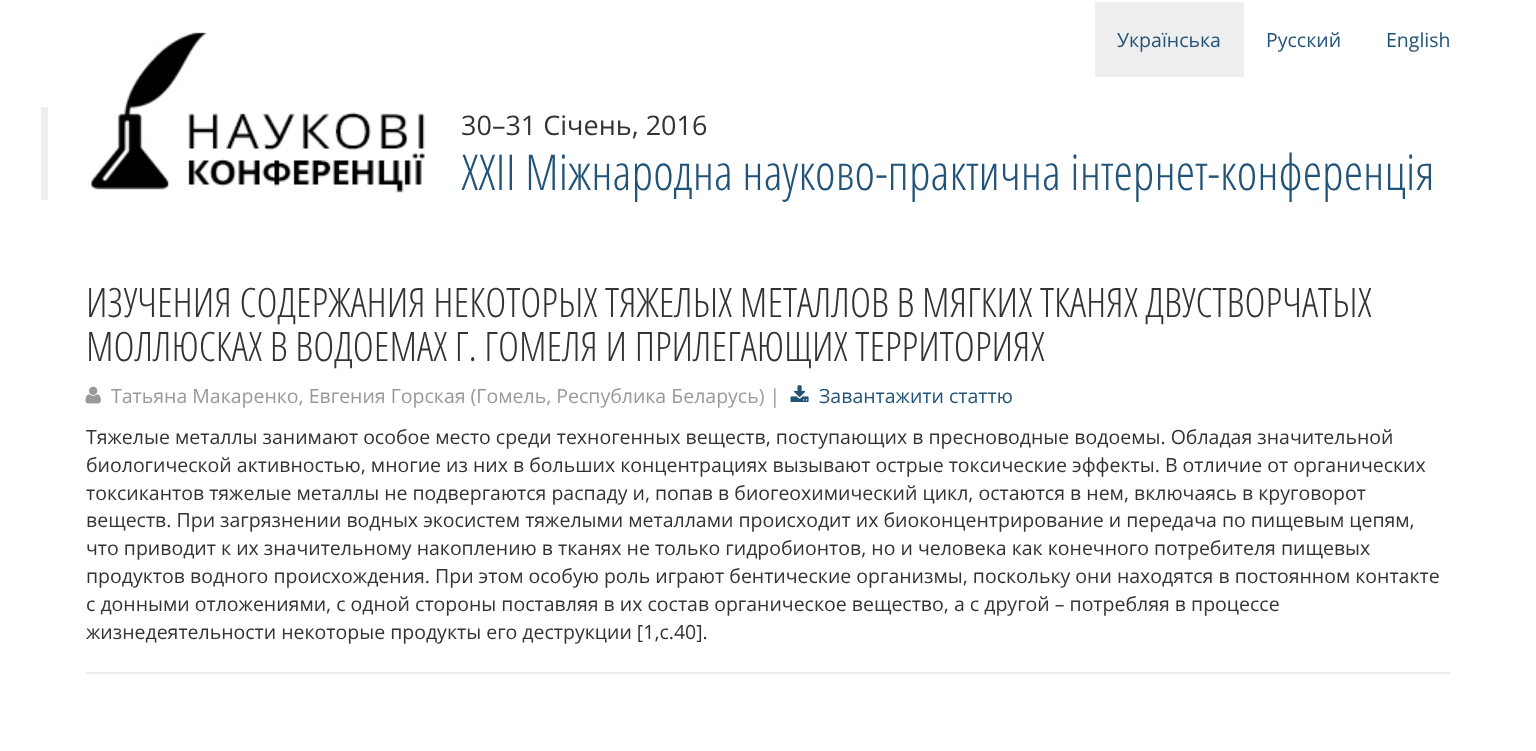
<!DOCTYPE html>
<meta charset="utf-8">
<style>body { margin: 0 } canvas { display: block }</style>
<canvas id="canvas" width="1536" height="751"></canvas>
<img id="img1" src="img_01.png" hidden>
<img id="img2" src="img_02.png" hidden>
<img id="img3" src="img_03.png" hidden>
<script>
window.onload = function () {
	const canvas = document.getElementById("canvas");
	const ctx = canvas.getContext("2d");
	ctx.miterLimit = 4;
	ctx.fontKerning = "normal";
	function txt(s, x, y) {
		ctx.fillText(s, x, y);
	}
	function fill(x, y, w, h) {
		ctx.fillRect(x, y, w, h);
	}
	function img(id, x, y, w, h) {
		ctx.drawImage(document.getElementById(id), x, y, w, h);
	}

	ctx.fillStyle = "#FFFFFF";
	fill(0, 0, 1536, 751);
	img("img1", 91, 32, 334, 161);
	ctx.fillStyle = "#EEEEEE";
	fill(1095, 2, 149, 75);
	fill(41, 107, 7, 93);
	img("img2", 85, 386, 16, 18);
	img("img3", 790, 385, 19, 17);
	fill(86, 672, 1365, 2);
	ctx.font = "19.5px Open Sans";
	ctx.fillStyle = "#225378";
	txt("Українська", 1117, 47);
	txt("Русский", 1266, 47);
	txt("English", 1386, 47);
	ctx.font = "27px Open Sans";
	ctx.fillStyle = "#333333";
	txt("30–31 Січень, 2016", 461, 135);
	ctx.font = "300 49.5px Open Sans Condensed";
	ctx.fillStyle = "#225378";
	txt("ХXII Міжнародна науково-практична інтернет-конференція", 461, 190);
	ctx.font = "300 40.5px Open Sans Condensed";
	ctx.fillStyle = "#333333";
	txt("ИЗУЧЕНИЯ СОДЕРЖАНИЯ НЕКОТОРЫХ ТЯЖЕЛЫХ МЕТАЛЛОВ В МЯГКИХ ТКАНЯХ ДВУСТВОРЧАТЫХ", 86, 317);
	txt("МОЛЛЮСКАХ В ВОДОЕМАХ Г. ГОМЕЛЯ И ПРИЛЕГАЮЩИХ ТЕРРИТОРИЯХ", 86, 361);
	ctx.font = "19.5px Open Sans";
	ctx.fillStyle = "#999999";
	txt("Татьяна Макаренко, Евгения Горская (Гомель, Республика Беларусь) |", 111, 403);
	ctx.fillStyle = "#225378";
	txt("Завантажити статтю", 819, 403);
	ctx.fillStyle = "#333333";
	txt("Тяжелые металлы занимают особое место среди техногенных веществ, поступающих в пресноводные водоемы. Обладая значительной", 86, 444);
	txt("биологической активностью, многие из них в больших концентрациях вызывают острые токсические эффекты. В отличие от органических", 86, 472);
	txt("токсикантов тяжелые металлы не подвергаются распаду и, попав в биогеохимический цикл, остаются в нем, включаясь в круговорот", 86, 500);
	txt("веществ. При загрязнении водных экосистем тяжелыми металлами происходит их биоконцентрирование и передача по пищевым цепям,", 86, 527);
	txt("что приводит к их значительному накоплению в тканях не только гидробионтов, но и человека как конечного потребителя пищевых", 86, 555);
	txt("продуктов водного происхождения. При этом особую роль играют бентические организмы, поскольку они находятся в постоянном контакте", 86, 583);
	txt("с донными отложениями, с одной стороны поставляя в их состав органическое вещество, а с другой – потребляя в процессе", 86, 611);
	txt("жизнедеятельности некоторые продукты его деструкции [1,с.40].", 86, 639);
};
</script>
